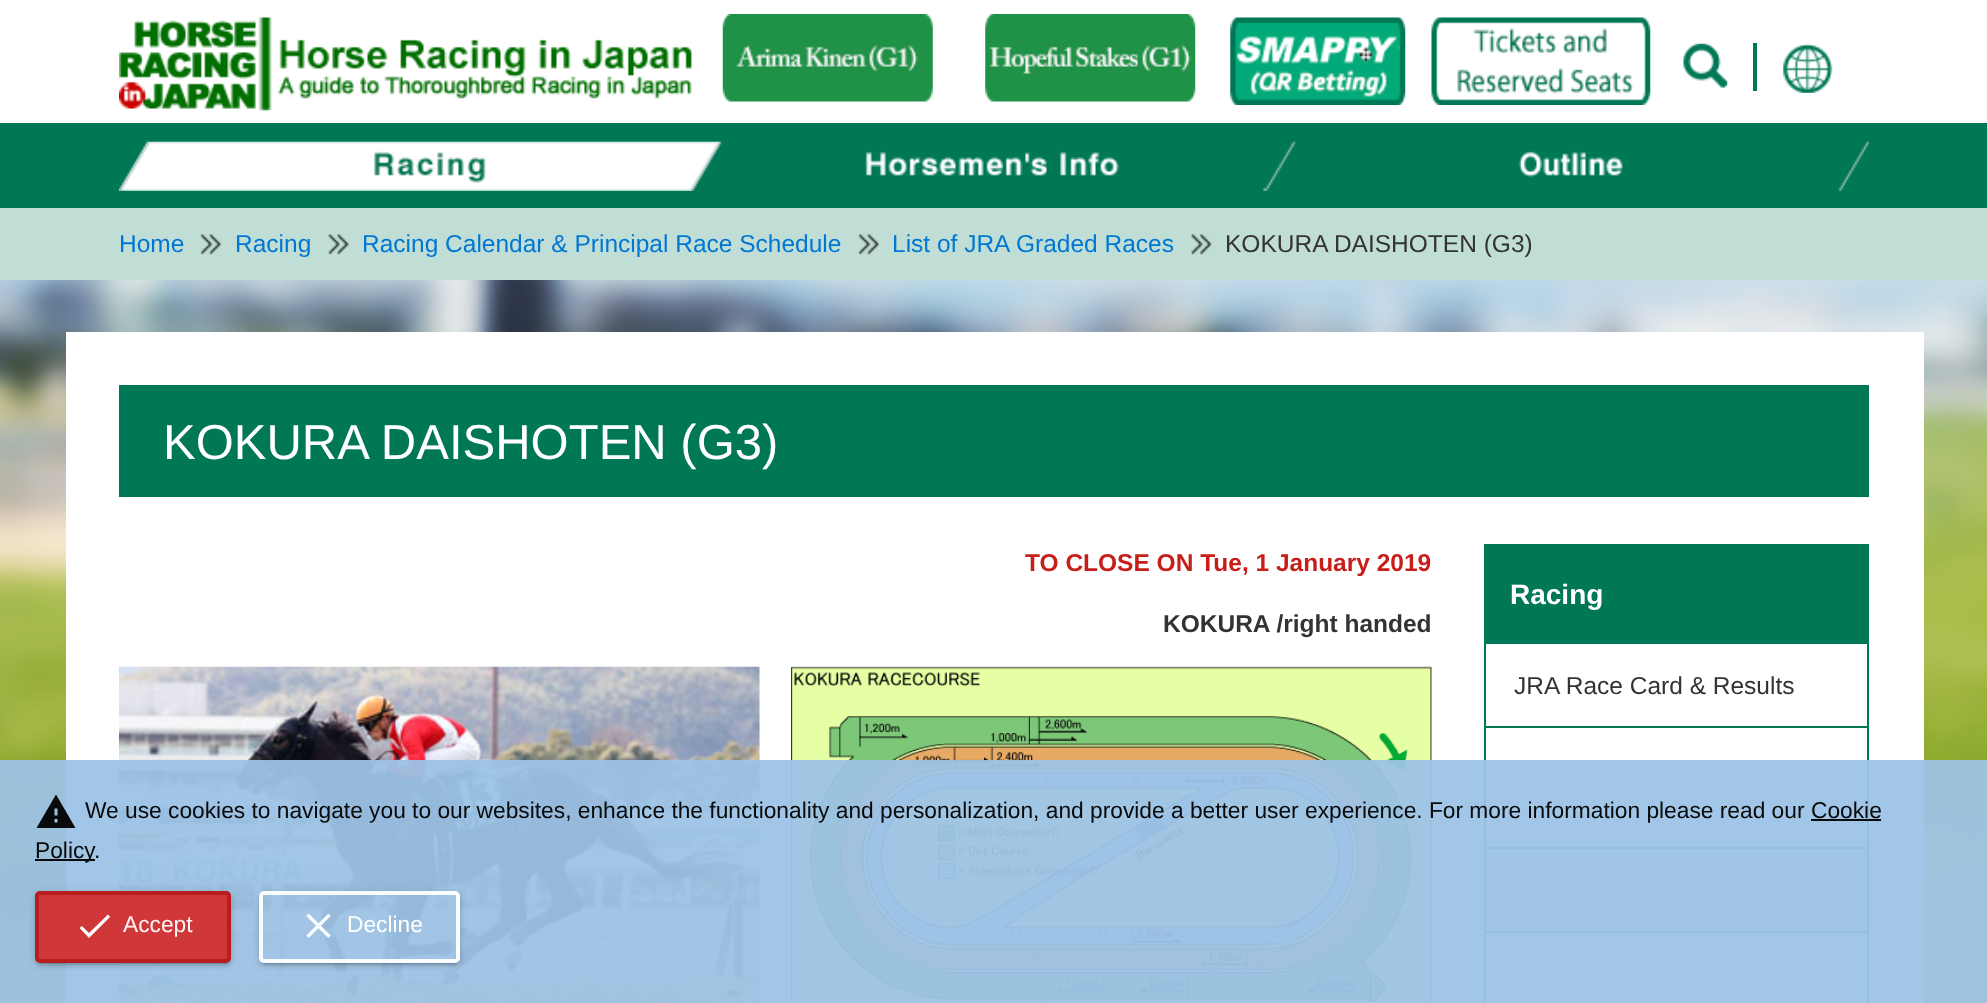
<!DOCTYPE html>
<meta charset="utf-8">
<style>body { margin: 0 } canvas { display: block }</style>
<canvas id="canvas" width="1987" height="1003"></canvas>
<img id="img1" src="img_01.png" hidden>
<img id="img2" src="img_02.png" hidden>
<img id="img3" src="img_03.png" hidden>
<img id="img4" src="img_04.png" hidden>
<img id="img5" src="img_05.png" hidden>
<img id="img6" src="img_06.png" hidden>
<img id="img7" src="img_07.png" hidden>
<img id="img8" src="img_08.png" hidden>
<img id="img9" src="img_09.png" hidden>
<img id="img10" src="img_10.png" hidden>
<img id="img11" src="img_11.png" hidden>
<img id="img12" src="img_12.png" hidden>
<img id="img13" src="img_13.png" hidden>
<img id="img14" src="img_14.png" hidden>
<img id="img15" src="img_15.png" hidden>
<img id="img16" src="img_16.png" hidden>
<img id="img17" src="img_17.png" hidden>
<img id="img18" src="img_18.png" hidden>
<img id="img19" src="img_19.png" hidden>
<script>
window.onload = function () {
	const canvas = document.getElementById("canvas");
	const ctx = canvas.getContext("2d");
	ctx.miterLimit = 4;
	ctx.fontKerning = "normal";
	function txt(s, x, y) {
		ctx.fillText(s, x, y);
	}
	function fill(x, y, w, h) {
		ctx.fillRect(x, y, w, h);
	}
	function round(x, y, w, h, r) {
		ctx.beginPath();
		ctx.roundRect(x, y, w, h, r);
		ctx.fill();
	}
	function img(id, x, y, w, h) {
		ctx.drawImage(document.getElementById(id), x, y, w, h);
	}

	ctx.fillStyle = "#FFFFFF";
	fill(0, 0, 1987, 1003);
	img("img1", 0, 280, 1987, 723);
	img("img2", 119, 17, 573, 94);
	img("img3", 722, 14, 211, 88);
	img("img4", 985, 14, 211, 88);
	img("img5", 1230, 17, 176, 88);
	img("img6", 1431, 17, 220, 88);
	ctx.fillStyle = "#007856";
	fill(1753, 43, 4, 48);
	img("img7", 1683, 43, 45, 45);
	img("img8", 1783, 43, 50, 50);
	fill(0, 123, 1987, 85);
	img("img9", 119, 141, 31, 50);
	img("img10", 119, 141, 603, 50);
	img("img11", 689, 141, 577, 50);
	img("img12", 1265, 141, 604, 50);
	ctx.fillStyle = "#C1DED6";
	fill(0, 208, 1987, 72);
	img("img13", 200, 234, 21, 21);
	img("img14", 328, 234, 21, 21);
	img("img15", 858, 234, 21, 21);
	img("img16", 1191, 234, 21, 21);
	ctx.fillStyle = "#FFFFFF";
	fill(66, 332, 1858, 671);
	ctx.fillStyle = "#007856";
	fill(119, 385, 1750, 112);
	img("img17", 119, 666, 641, 337);
	img("img18", 791, 666, 641, 337);
	fill(1484, 544, 385, 98);
	ctx.strokeStyle = "#007856";
	ctx.lineWidth = 2;
	ctx.strokeRect(1485, 643, 383, 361);
	fill(1486, 726, 381, 2);
	ctx.fillStyle = "#E9F4CD";
	fill(1486, 849, 381, 82);
	ctx.fillStyle = "#007856";
	fill(1486, 847, 381, 2);
	fill(1486, 931, 381, 2);
	ctx.fillStyle = "rgba(157, 195, 230, 0.95)";
	fill(0, 760, 1987, 243);
	ctx.fillStyle = "rgba(0, 0, 0, 0.95)";
	ctx.beginPath();
	ctx.moveTo(57.5, 815.5);
	ctx.lineTo(57.5, 808.5);
	ctx.lineTo(54.5, 808.5);
	ctx.lineTo(54.5, 815.5);
	ctx.closePath();
	ctx.moveTo(57.5, 822.5);
	ctx.lineTo(57.5, 819);
	ctx.lineTo(54.5, 819);
	ctx.lineTo(54.5, 822.5);
	ctx.closePath();
	ctx.moveTo(36.5, 828);
	ctx.lineTo(56, 794.5);
	ctx.lineTo(75.5, 828);
	ctx.closePath();
	ctx.fill();
	fill(1811, 819, 70, 2);
	fill(35, 859, 60, 2);
	ctx.save();
	ctx.beginPath();
	ctx.moveTo(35, 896);
	ctx.lineTo(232, 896);
	ctx.lineTo(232, 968);
	ctx.lineTo(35, 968);
	ctx.closePath();
	ctx.moveTo(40, 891);
	ctx.lineTo(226, 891);
	ctx.bezierCurveTo(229, 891, 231, 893, 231, 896);
	ctx.lineTo(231, 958);
	ctx.bezierCurveTo(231, 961, 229, 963, 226, 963);
	ctx.lineTo(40, 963);
	ctx.bezierCurveTo(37, 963, 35, 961, 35, 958);
	ctx.lineTo(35, 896);
	ctx.bezierCurveTo(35, 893, 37, 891, 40, 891);
	ctx.closePath();
	ctx.clip("evenodd");
	ctx.fillStyle = "rgba(0, 0, 0, 0.19)";
	ctx.filter = "blur(1px)";
	ctx.beginPath();
	ctx.roundRect(39, 900, 189, 64, 2);
	ctx.fill();
	ctx.filter = "none";
	ctx.restore();
	ctx.save();
	ctx.beginPath();
	ctx.moveTo(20, 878);
	ctx.lineTo(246, 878);
	ctx.lineTo(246, 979);
	ctx.lineTo(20, 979);
	ctx.closePath();
	ctx.moveTo(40, 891);
	ctx.lineTo(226, 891);
	ctx.bezierCurveTo(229, 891, 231, 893, 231, 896);
	ctx.lineTo(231, 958);
	ctx.bezierCurveTo(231, 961, 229, 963, 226, 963);
	ctx.lineTo(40, 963);
	ctx.bezierCurveTo(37, 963, 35, 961, 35, 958);
	ctx.lineTo(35, 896);
	ctx.bezierCurveTo(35, 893, 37, 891, 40, 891);
	ctx.closePath();
	ctx.clip("evenodd");
	ctx.fillStyle = "rgba(0, 0, 0, 0.11)";
	ctx.filter = "blur(4.5px)";
	ctx.beginPath();
	ctx.roundRect(35, 893, 196, 71, 5);
	ctx.fill();
	ctx.filter = "none";
	ctx.restore();
	ctx.save();
	ctx.beginPath();
	ctx.moveTo(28, 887);
	ctx.lineTo(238, 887);
	ctx.lineTo(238, 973);
	ctx.lineTo(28, 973);
	ctx.closePath();
	ctx.moveTo(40, 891);
	ctx.lineTo(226, 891);
	ctx.bezierCurveTo(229, 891, 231, 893, 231, 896);
	ctx.lineTo(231, 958);
	ctx.bezierCurveTo(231, 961, 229, 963, 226, 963);
	ctx.lineTo(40, 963);
	ctx.bezierCurveTo(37, 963, 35, 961, 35, 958);
	ctx.lineTo(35, 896);
	ctx.bezierCurveTo(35, 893, 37, 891, 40, 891);
	ctx.closePath();
	ctx.clip("evenodd");
	ctx.fillStyle = "rgba(0, 0, 0, 0.13)";
	ctx.filter = "blur(2px)";
	ctx.beginPath();
	ctx.roundRect(35, 894, 196, 72, 5);
	ctx.fill();
	ctx.filter = "none";
	ctx.restore();
	ctx.fillStyle = "rgba(211, 47, 47, 0.95)";
	round(35, 891, 196, 72, 5);
	ctx.beginPath();
	ctx.roundRect(37, 893, 192, 68, 3);
	ctx.strokeStyle = "rgba(183, 28, 28, 0.95)";
	ctx.lineWidth = 4;
	ctx.stroke();
	ctx.fillStyle = "#FFFFFF";
	ctx.beginPath();
	ctx.moveTo(89, 933);
	ctx.lineTo(108, 914.5);
	ctx.lineTo(110, 917);
	ctx.lineTo(89, 938);
	ctx.lineTo(79.5, 928);
	ctx.lineTo(82, 926);
	ctx.closePath();
	ctx.fill();
	ctx.save();
	ctx.beginPath();
	ctx.moveTo(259, 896);
	ctx.lineTo(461, 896);
	ctx.lineTo(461, 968);
	ctx.lineTo(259, 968);
	ctx.closePath();
	ctx.moveTo(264, 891);
	ctx.lineTo(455, 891);
	ctx.bezierCurveTo(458, 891, 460, 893, 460, 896);
	ctx.lineTo(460, 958);
	ctx.bezierCurveTo(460, 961, 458, 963, 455, 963);
	ctx.lineTo(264, 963);
	ctx.bezierCurveTo(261, 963, 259, 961, 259, 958);
	ctx.lineTo(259, 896);
	ctx.bezierCurveTo(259, 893, 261, 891, 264, 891);
	ctx.closePath();
	ctx.clip("evenodd");
	ctx.fillStyle = "rgba(0, 0, 0, 0.19)";
	ctx.filter = "blur(1px)";
	ctx.beginPath();
	ctx.roundRect(263, 900, 194, 64, 2);
	ctx.fill();
	ctx.filter = "none";
	ctx.restore();
	ctx.save();
	ctx.beginPath();
	ctx.moveTo(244, 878);
	ctx.lineTo(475, 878);
	ctx.lineTo(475, 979);
	ctx.lineTo(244, 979);
	ctx.closePath();
	ctx.moveTo(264, 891);
	ctx.lineTo(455, 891);
	ctx.bezierCurveTo(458, 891, 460, 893, 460, 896);
	ctx.lineTo(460, 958);
	ctx.bezierCurveTo(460, 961, 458, 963, 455, 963);
	ctx.lineTo(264, 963);
	ctx.bezierCurveTo(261, 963, 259, 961, 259, 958);
	ctx.lineTo(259, 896);
	ctx.bezierCurveTo(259, 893, 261, 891, 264, 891);
	ctx.closePath();
	ctx.clip("evenodd");
	ctx.fillStyle = "rgba(0, 0, 0, 0.11)";
	ctx.filter = "blur(4.5px)";
	ctx.beginPath();
	ctx.roundRect(259, 893, 201, 71, 5);
	ctx.fill();
	ctx.filter = "none";
	ctx.restore();
	ctx.save();
	ctx.beginPath();
	ctx.moveTo(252, 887);
	ctx.lineTo(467, 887);
	ctx.lineTo(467, 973);
	ctx.lineTo(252, 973);
	ctx.closePath();
	ctx.moveTo(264, 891);
	ctx.lineTo(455, 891);
	ctx.bezierCurveTo(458, 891, 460, 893, 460, 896);
	ctx.lineTo(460, 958);
	ctx.bezierCurveTo(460, 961, 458, 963, 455, 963);
	ctx.lineTo(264, 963);
	ctx.bezierCurveTo(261, 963, 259, 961, 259, 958);
	ctx.lineTo(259, 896);
	ctx.bezierCurveTo(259, 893, 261, 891, 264, 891);
	ctx.closePath();
	ctx.clip("evenodd");
	ctx.fillStyle = "rgba(0, 0, 0, 0.13)";
	ctx.filter = "blur(2px)";
	ctx.beginPath();
	ctx.roundRect(259, 894, 201, 72, 5);
	ctx.fill();
	ctx.filter = "none";
	ctx.restore();
	ctx.beginPath();
	ctx.roundRect(261, 893, 197, 68, 3);
	ctx.strokeStyle = "rgba(255, 255, 255, 0.95)";
	ctx.stroke();
	img("img19", 306, 913, 25, 25);
	ctx.font = "24.5px Liberation Sans";
	ctx.fillStyle = "#0077D3";
	txt("Home", 119, 252);
	txt("Racing", 235, 252);
	txt("Racing Calendar & Principal Race Schedule", 362, 252);
	txt("List of JRA Graded Races", 892, 252);
	ctx.fillStyle = "#333333";
	txt("KOKURA DAISHOTEN (G3)", 1225, 252);
	ctx.font = "49px Liberation Sans";
	ctx.fillStyle = "#FFFFFF";
	txt("KOKURA DAISHOTEN (G3)", 163, 459);
	ctx.font = "bold 24.5px Liberation Sans";
	ctx.fillStyle = "#C71E19";
	txt("TO CLOSE ON Tue, 1 January 2019", 1025, 571);
	ctx.fillStyle = "#333333";
	txt("KOKURA /right handed", 1163, 632);
	ctx.font = "bold 28px Liberation Sans";
	ctx.fillStyle = "#FFFFFF";
	txt("Racing", 1510, 604);
	ctx.font = "24.5px Liberation Sans";
	ctx.fillStyle = "#333333";
	txt("JRA Race Card & Results", 1514, 694);
	ctx.font = "22.75px Liberation Sans";
	ctx.fillStyle = "#080A0B";
	txt("We use cookies to navigate you to our websites, enhance the functionality and personalization, and provide a better user experience. For more information please read our", 85, 818);
	txt("Cookie", 1811, 818);
	txt("Policy", 35, 858);
	txt(".", 94, 858);
	ctx.fillStyle = "#FDF5F5";
	txt("Accept", 123, 932);
	ctx.fillStyle = "#FFFFFF";
	txt("Decline", 347, 932);
};
</script>
